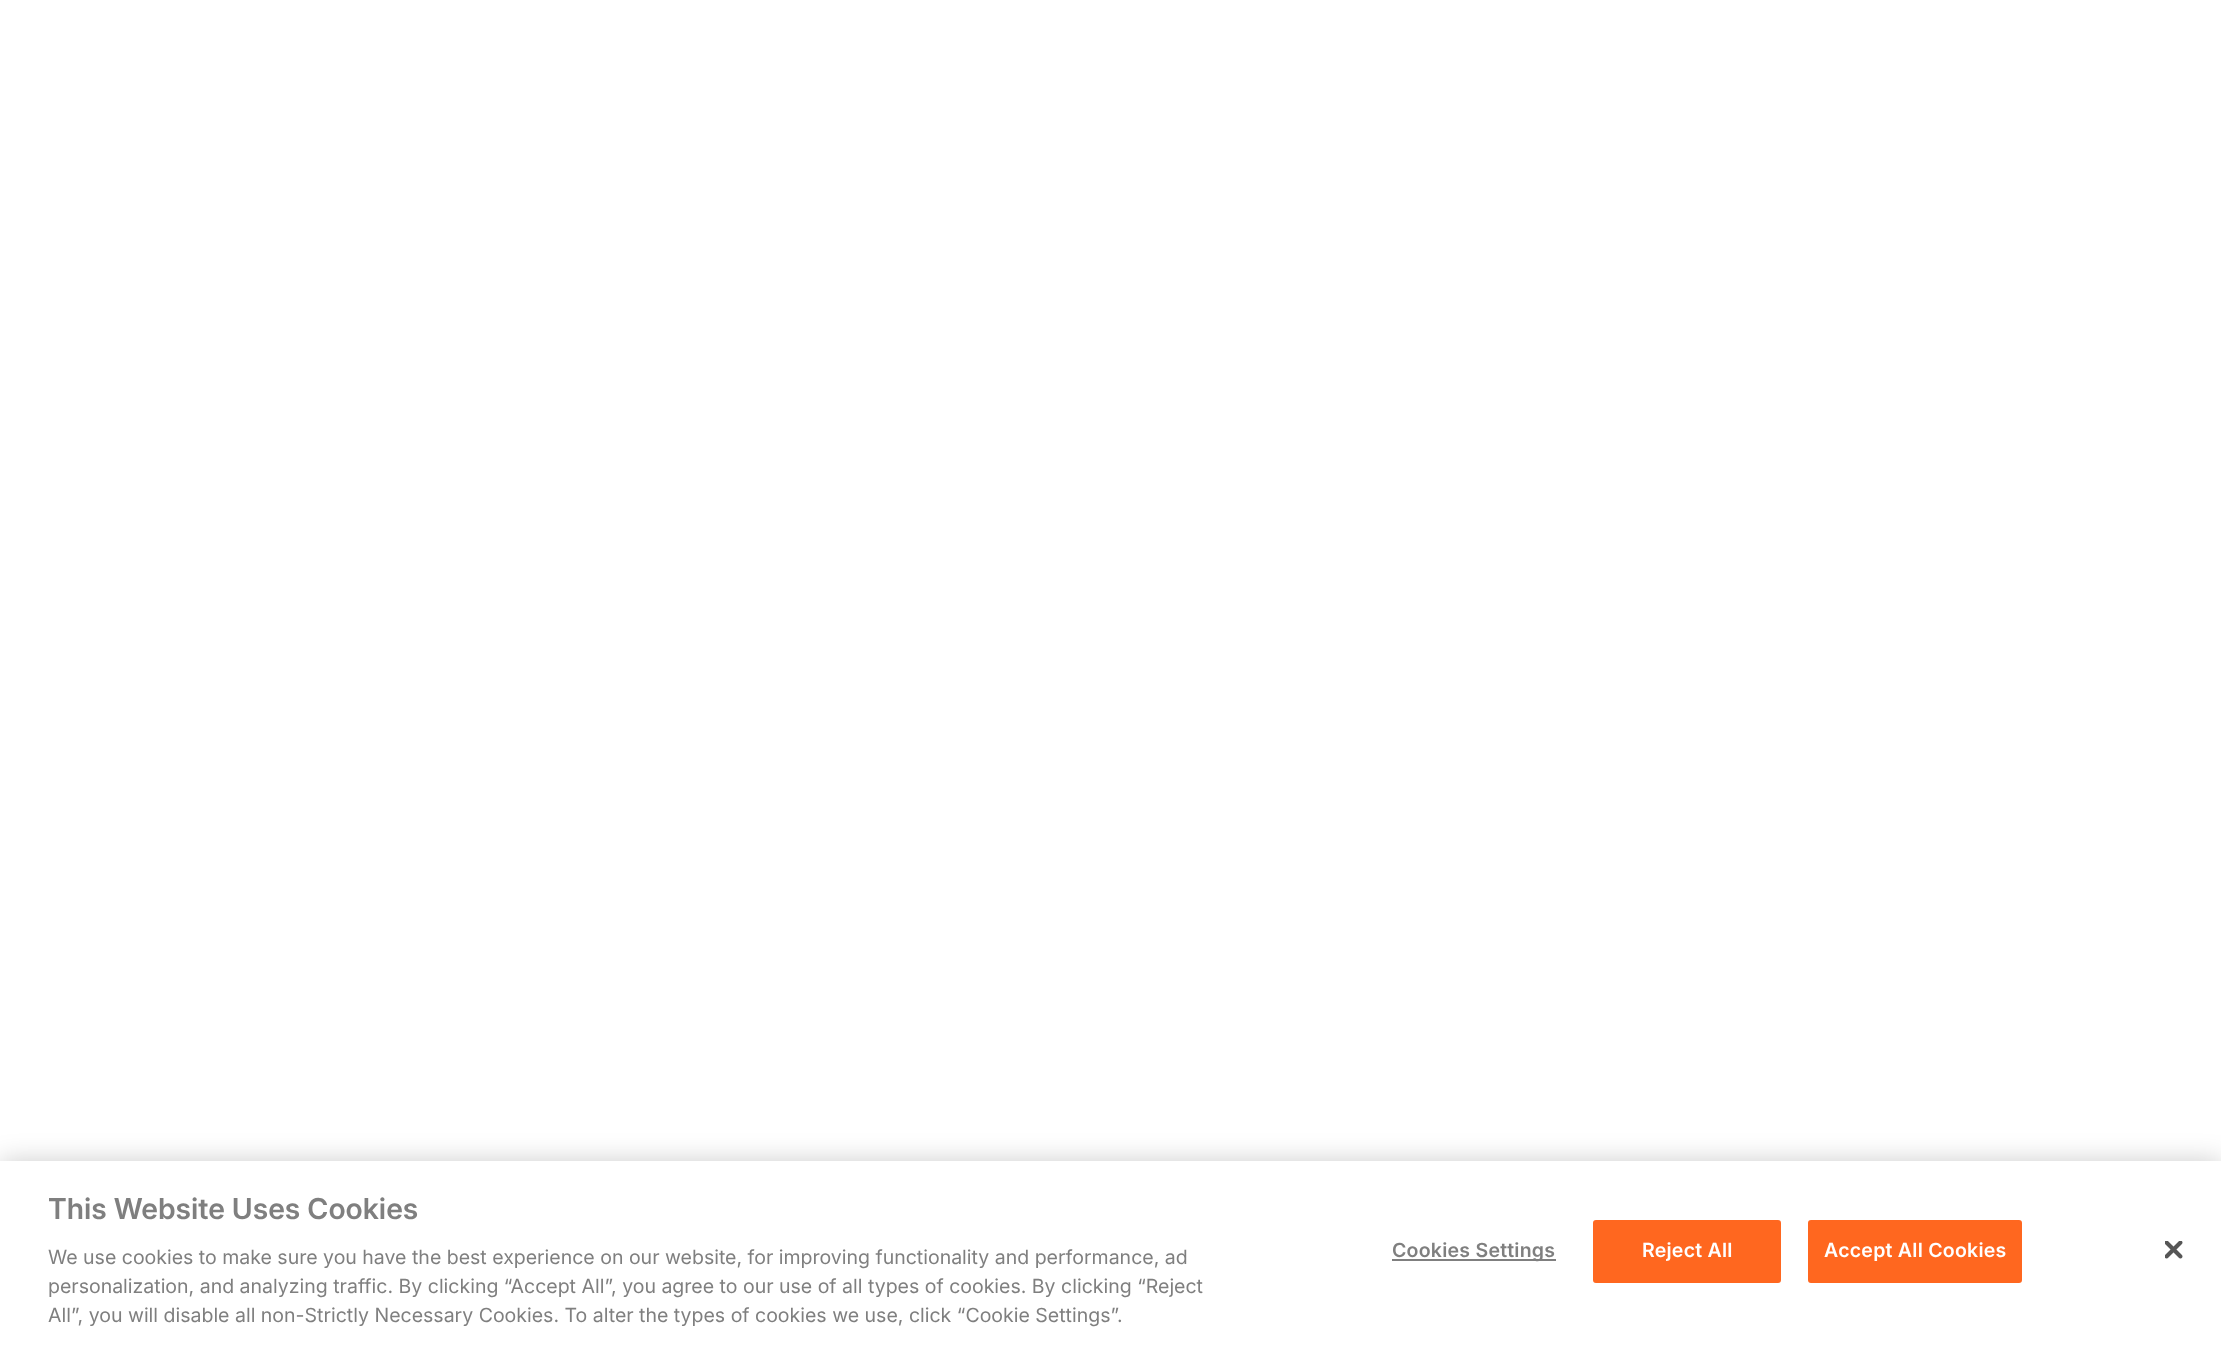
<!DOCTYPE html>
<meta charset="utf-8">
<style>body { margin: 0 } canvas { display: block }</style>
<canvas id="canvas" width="2221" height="1345"></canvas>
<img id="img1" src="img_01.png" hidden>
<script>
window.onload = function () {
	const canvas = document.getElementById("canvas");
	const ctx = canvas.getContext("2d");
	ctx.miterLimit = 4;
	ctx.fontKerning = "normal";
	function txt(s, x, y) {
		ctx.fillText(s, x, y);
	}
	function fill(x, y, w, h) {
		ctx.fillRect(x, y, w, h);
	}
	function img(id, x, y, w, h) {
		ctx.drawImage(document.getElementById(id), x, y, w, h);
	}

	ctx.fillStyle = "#FFFFFF";
	fill(0, 0, 2221, 1345);
	ctx.fillStyle = "rgba(0, 0, 0, 0.2)";
	ctx.filter = "blur(13.5px)";
	ctx.beginPath();
	ctx.rect(0, 1161, 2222, 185);
	ctx.fill();
	ctx.filter = "none";
	ctx.fillStyle = "#FFFFFF";
	fill(0, 1161, 2221, 184);
	ctx.fillStyle = "#7F7F7F";
	fill(1392, 1259, 164, 2);
	ctx.fillStyle = "#FF671F";
	ctx.beginPath();
	ctx.roundRect(1594, 1221, 186, 61, 2);
	ctx.fill();
	ctx.strokeStyle = "#FF671F";
	ctx.lineWidth = 2;
	ctx.stroke();
	ctx.beginPath();
	ctx.roundRect(1809, 1221, 212, 61, 2);
	ctx.fill();
	ctx.stroke();
	img("img1", 2165, 1241, 18, 18);
	ctx.font = "600 28.75px Inter";
	ctx.fillStyle = "#7F7F7F";
	txt("This Website Uses Cookies", 48, 1219);
	ctx.font = "19.5px Inter";
	txt("We use cookies to make sure you have the best experience on our website, for improving functionality and performance, ad", 48, 1264);
	txt("personalization, and analyzing traffic. By clicking “Accept All”, you agree to our use of all types of cookies. By clicking “Reject", 48, 1293);
	txt("All”, you will disable all non-Strictly Necessary Cookies. To alter the types of cookies we use, click “Cookie Settings”.", 48, 1322);
	ctx.letterSpacing = "0.25px";
	ctx.font = "600 19.5px 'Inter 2'";
	txt("Cookies Settings", 1392, 1257);
	ctx.fillStyle = "#FFFFFF";
	txt("Reject All", 1642, 1257);
	txt("Accept All Cookies", 1824, 1257);
};
</script>
